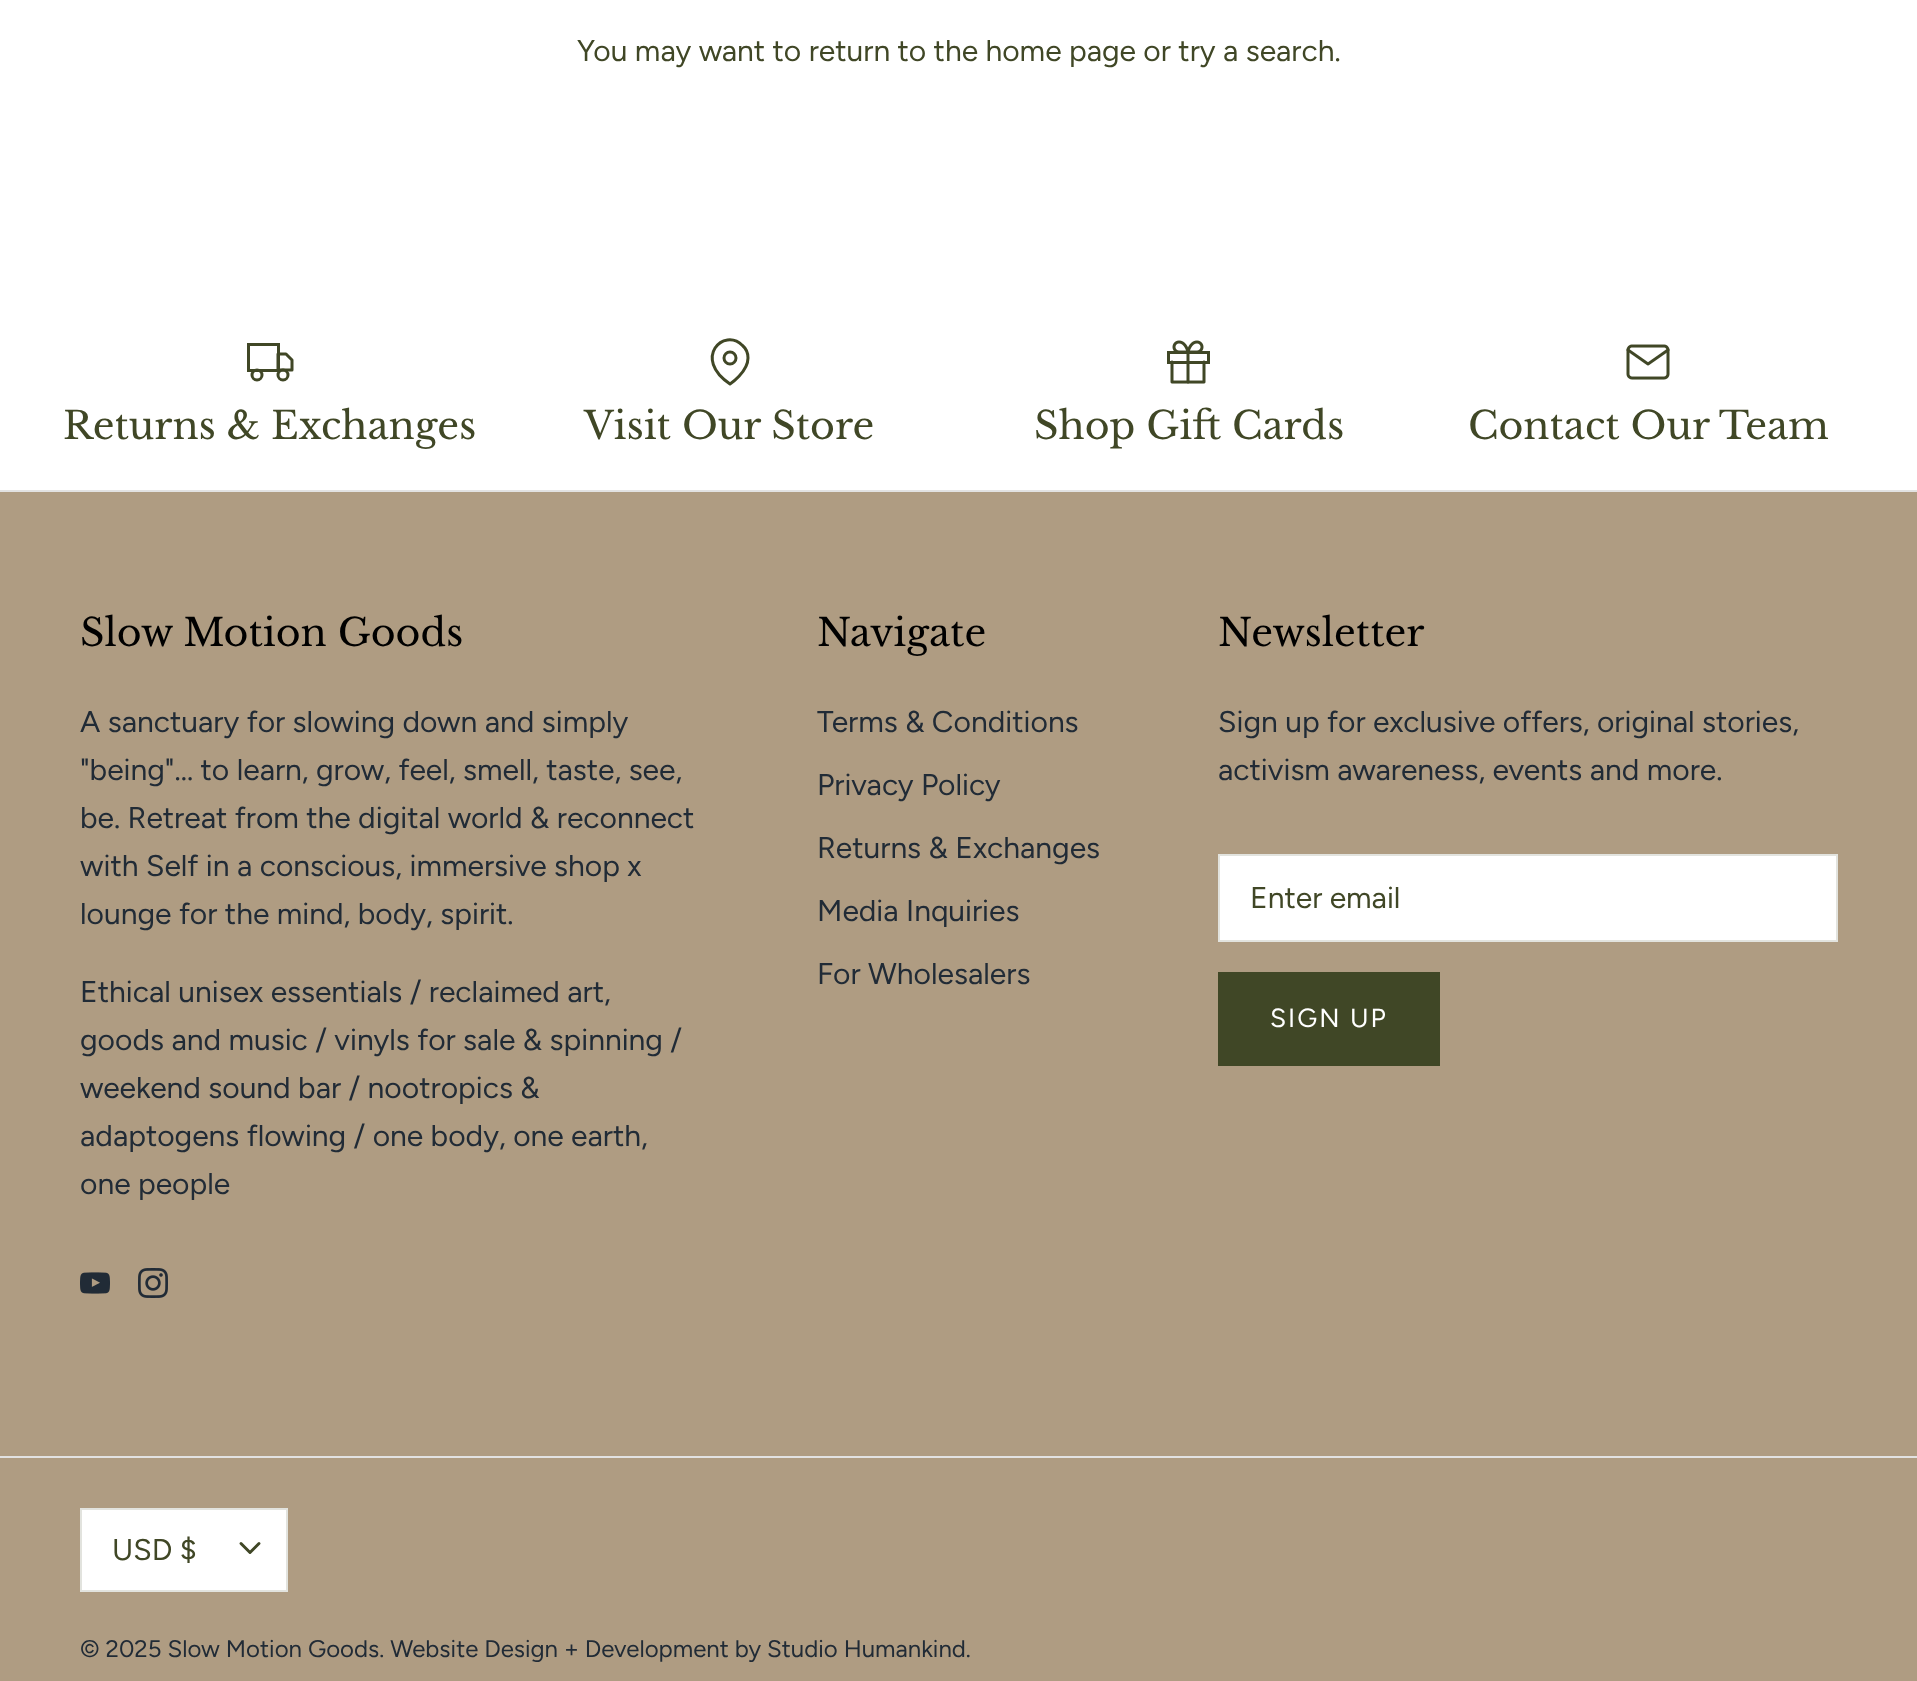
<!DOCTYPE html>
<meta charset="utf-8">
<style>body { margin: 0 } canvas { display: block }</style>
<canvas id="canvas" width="1917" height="1681"></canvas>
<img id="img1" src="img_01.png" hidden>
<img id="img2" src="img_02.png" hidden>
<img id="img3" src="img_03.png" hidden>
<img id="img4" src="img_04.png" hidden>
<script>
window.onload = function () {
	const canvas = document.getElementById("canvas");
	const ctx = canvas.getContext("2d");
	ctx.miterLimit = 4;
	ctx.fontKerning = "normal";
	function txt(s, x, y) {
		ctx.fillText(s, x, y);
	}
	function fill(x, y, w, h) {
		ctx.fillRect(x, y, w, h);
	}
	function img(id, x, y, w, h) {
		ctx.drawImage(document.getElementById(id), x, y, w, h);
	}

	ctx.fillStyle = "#FFFFFF";
	fill(0, 0, 1917, 1681);
	ctx.fillStyle = "#AF9C82";
	fill(0, 492, 1917, 1189);
	ctx.strokeStyle = "#404726";
	ctx.lineWidth = 3;
	ctx.strokeRect(248.5, 344.5, 30, 26);
	ctx.beginPath();
	ctx.moveTo(278, 354);
	ctx.lineTo(286, 354);
	ctx.lineTo(292, 360);
	ctx.lineTo(292, 370);
	ctx.lineTo(278, 370);
	ctx.closePath();
	ctx.lineCap = "round";
	ctx.lineJoin = "round";
	ctx.stroke();
	ctx.beginPath();
	ctx.arc(257, 375, 5, 0, Math.PI * 2);
	ctx.stroke();
	ctx.beginPath();
	ctx.arc(283, 375, 5, 0, Math.PI * 2);
	ctx.stroke();
	ctx.beginPath();
	ctx.moveTo(748, 358);
	ctx.bezierCurveTo(748, 372, 730, 384, 730, 384);
	ctx.bezierCurveTo(692, 358.5, 724, 326.5, 742.5, 345.5);
	ctx.bezierCurveTo(746, 348.5, 748, 353, 748, 358);
	ctx.closePath();
	ctx.stroke();
	ctx.beginPath();
	ctx.arc(730, 358, 6, 0, Math.PI * 2);
	ctx.stroke();
	img("img1", 1167, 340, 43, 44);
	img("img2", 1626, 344, 44, 36);
	ctx.fillStyle = "#E2E2E2";
	fill(0, 490, 1917, 2);
	img("img3", 80, 1272, 30, 22);
	img("img4", 138, 1268, 30, 30);
	ctx.fillStyle = "#FFFFFF";
	ctx.beginPath();
	ctx.rect(1219, 855, 618, 86);
	ctx.fill();
	ctx.strokeStyle = "#E2E3DE";
	ctx.lineWidth = 2;
	ctx.lineJoin = "miter";
	ctx.stroke();
	ctx.fillStyle = "#404726";
	fill(1218, 972, 222, 94);
	ctx.fillStyle = "#E2E2E2";
	fill(0, 1456, 1917, 2);
	ctx.fillStyle = "#FFFFFF";
	ctx.beginPath();
	ctx.rect(81, 1509, 206, 82);
	ctx.fill();
	ctx.stroke();
	ctx.beginPath();
	ctx.moveTo(241, 1543.5);
	ctx.lineTo(250, 1552.5);
	ctx.lineTo(259, 1543.5);
	ctx.strokeStyle = "#404726";
	ctx.lineWidth = 3;
	ctx.lineJoin = "round";
	ctx.stroke();
	ctx.font = "30px Figtree";
	ctx.fillStyle = "#404726";
	txt("You may want to return to the home page or try a search.", 577, 61);
	ctx.font = "38px Libre Baskerville";
	txt("Returns & Exchanges", 63, 439);
	txt("Visit Our Store", 584, 439);
	txt("Shop Gift Cards", 1034, 439);
	txt("Contact Our Team", 1468, 439);
	ctx.fillStyle = "#000000";
	txt("Slow Motion Goods", 80, 646);
	ctx.font = "30px Figtree";
	ctx.fillStyle = "#212B36";
	txt("A sanctuary for slowing down and simply", 80, 732);
	txt("\"being\"... to learn, grow, feel, smell, taste, see,", 80, 780);
	txt("be. Retreat from the digital world & reconnect", 80, 828);
	txt("with Self in a conscious, immersive shop x", 80, 876);
	txt("lounge for the mind, body, spirit.", 80, 924);
	txt("Ethical unisex essentials / reclaimed art,", 80, 1002);
	txt("goods and music / vinyls for sale & spinning /", 80, 1050);
	txt("weekend sound bar / nootropics &", 80, 1098);
	txt("adaptogens flowing / one body, one earth,", 80, 1146);
	txt("one people", 80, 1194);
	ctx.font = "38px Libre Baskerville";
	ctx.fillStyle = "#000000";
	txt("Navigate", 817, 646);
	ctx.font = "30px Figtree";
	ctx.fillStyle = "#212B36";
	txt("Terms & Conditions", 817, 732);
	txt("Privacy Policy", 817, 795);
	txt("Returns & Exchanges", 817, 858);
	txt("Media Inquiries", 817, 921);
	txt("For Wholesalers", 817, 984);
	ctx.font = "38px Libre Baskerville";
	ctx.fillStyle = "#000000";
	txt("Newsletter", 1218, 646);
	ctx.font = "30px Figtree";
	ctx.fillStyle = "#212B36";
	txt("Sign up for exclusive offers, original stories,", 1218, 732);
	txt("activism awareness, events and more.", 1218, 780);
	ctx.fillStyle = "#404726";
	txt("Enter email", 1250, 908);
	ctx.letterSpacing = "2px";
	ctx.font = "26.25px Figtree";
	ctx.fillStyle = "#FFFFFF";
	txt("SIGN UP", 1270, 1027);
	ctx.letterSpacing = "0px";
	ctx.font = "30px Figtree";
	ctx.fillStyle = "#404726";
	txt("USD $", 112, 1560);
	ctx.font = "24px Figtree";
	ctx.fillStyle = "#212B36";
	txt("© 2025 Slow Motion Goods. Website Design + Development by Studio Humankind.", 80, 1657);
};
</script>
